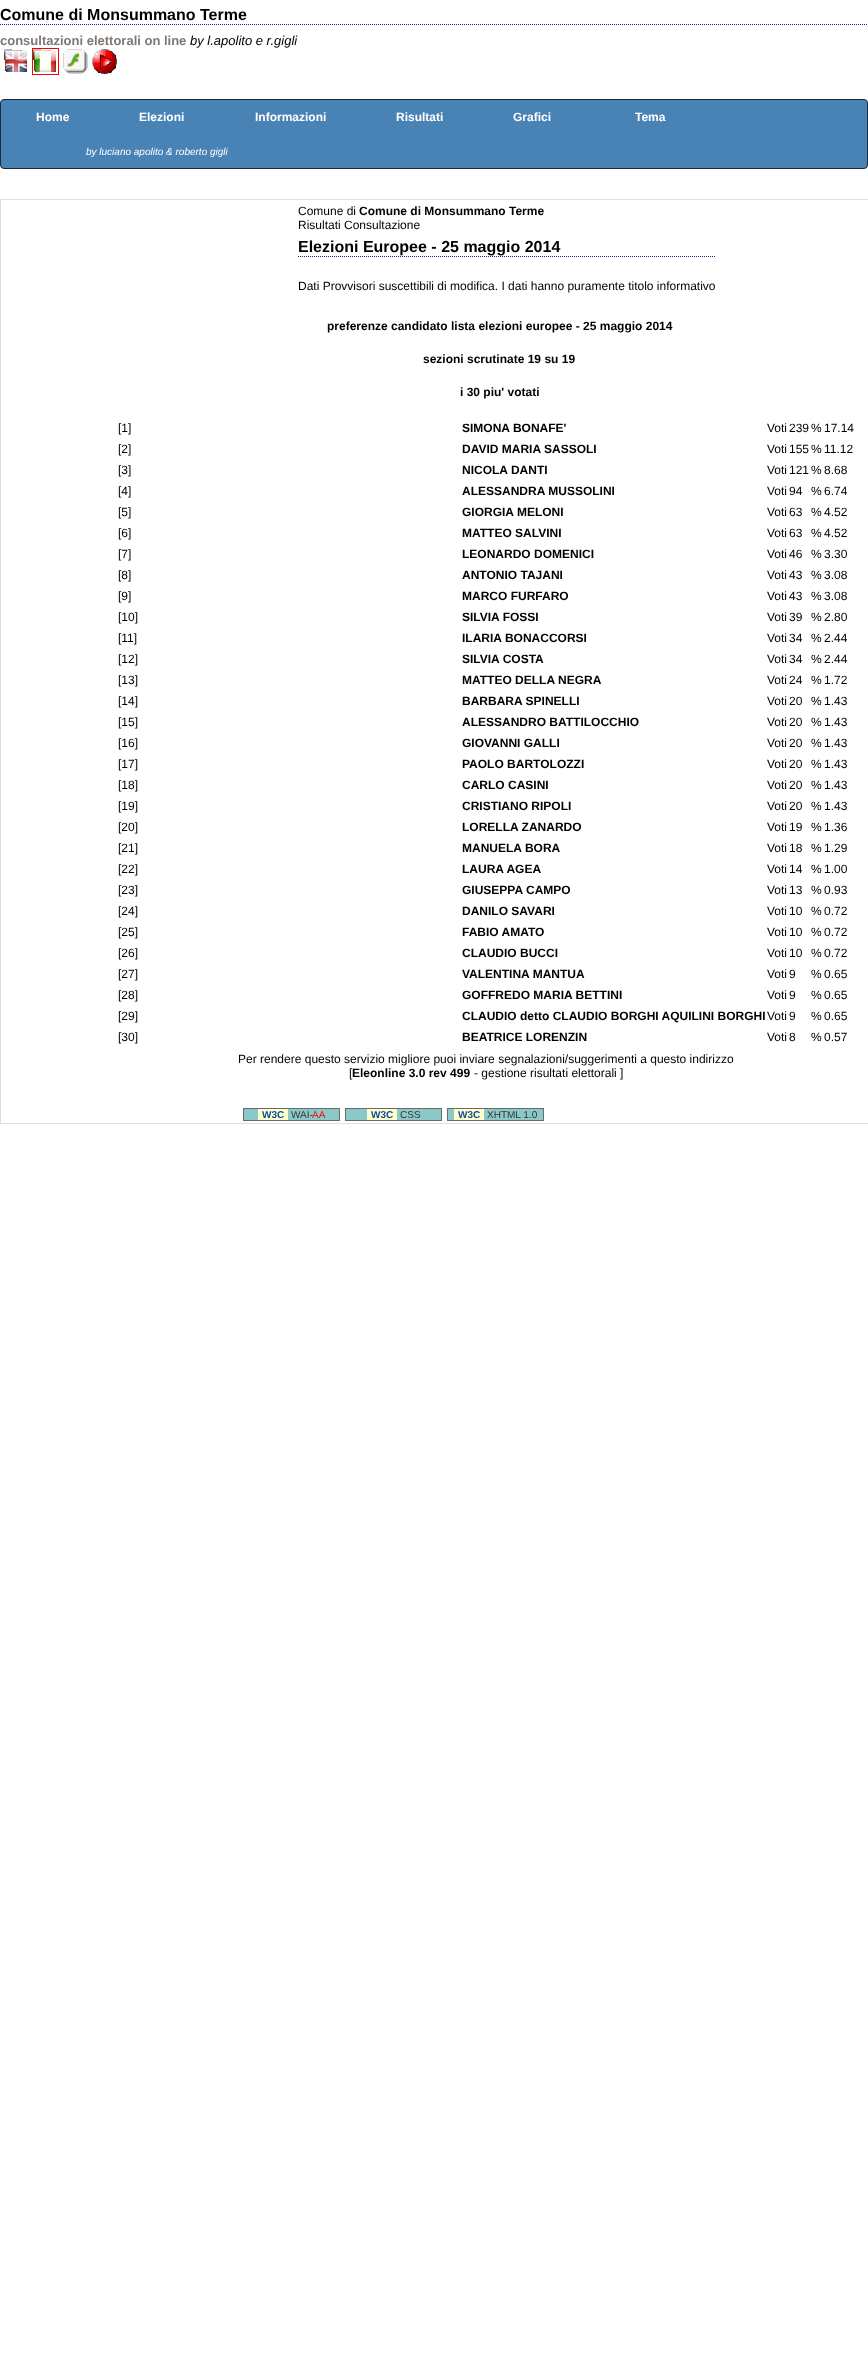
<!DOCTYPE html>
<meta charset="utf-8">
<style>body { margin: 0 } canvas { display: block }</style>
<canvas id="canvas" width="868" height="2359"></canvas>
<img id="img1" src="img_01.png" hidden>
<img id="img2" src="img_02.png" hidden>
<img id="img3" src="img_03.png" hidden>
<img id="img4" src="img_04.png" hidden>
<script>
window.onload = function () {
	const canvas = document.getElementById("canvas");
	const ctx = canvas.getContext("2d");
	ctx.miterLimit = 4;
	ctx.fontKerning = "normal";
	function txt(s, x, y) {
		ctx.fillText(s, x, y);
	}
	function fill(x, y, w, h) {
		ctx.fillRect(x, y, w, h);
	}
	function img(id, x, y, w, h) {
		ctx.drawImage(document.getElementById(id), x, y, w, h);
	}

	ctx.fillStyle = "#FFFFFF";
	fill(0, 0, 868, 2359);
	ctx.beginPath();
	ctx.moveTo(0, 24.5);
	ctx.lineTo(868, 24.5);
	ctx.strokeStyle = "#222266";
	ctx.setLineDash([1, 1]);
	ctx.stroke();
	img("img1", 4, 49, 23, 23);
	ctx.strokeStyle = "#FF0000";
	ctx.setLineDash([]);
	ctx.strokeRect(32.5, 48.5, 26, 26);
	img("img2", 33, 49, 23, 23);
	img("img3", 63, 49, 25, 25);
	img("img4", 92, 49, 25, 25);
	ctx.fillStyle = "#4983B6";
	ctx.beginPath();
	ctx.roundRect(0.5, 99.5, 867, 69, 3.5);
	ctx.fill();
	ctx.strokeStyle = "#1E2A36";
	ctx.stroke();
	ctx.strokeStyle = "#DEDEDC";
	ctx.strokeRect(0.5, 199.5, 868, 924);
	ctx.beginPath();
	ctx.moveTo(298, 256.5);
	ctx.lineTo(715, 256.5);
	ctx.strokeStyle = "#222266";
	ctx.setLineDash([1, 1]);
	ctx.stroke();
	ctx.strokeStyle = "#6A6A6A";
	ctx.setLineDash([]);
	ctx.strokeRect(243.5, 1108.5, 96, 12);
	ctx.fillStyle = "#8CC8C7";
	fill(244, 1109, 95, 11);
	ctx.fillStyle = "#FFFFCC";
	fill(258, 1109, 30, 11);
	ctx.strokeRect(345.5, 1108.5, 96, 12);
	ctx.fillStyle = "#8CC8C7";
	fill(346, 1109, 95, 11);
	ctx.fillStyle = "#FFFFCC";
	fill(367, 1109, 30, 11);
	ctx.strokeRect(447.5, 1108.5, 96, 12);
	ctx.fillStyle = "#8CC8C7";
	fill(448, 1109, 95, 11);
	ctx.fillStyle = "#FFFFCC";
	fill(454, 1109, 30, 11);
	ctx.font = "bold 16px Liberation Sans";
	ctx.fillStyle = "#000000";
	txt("Comune di Monsummano Terme", 0, 20);
	ctx.font = "bold 13px Liberation Sans";
	ctx.fillStyle = "#7F7772";
	txt("consultazioni elettorali on line", 0, 45);
	ctx.font = "italic 13px Liberation Sans";
	ctx.fillStyle = "#000000";
	txt("by l.apolito e r.gigli", 190, 45);
	ctx.font = "bold 12px Liberation Sans";
	ctx.fillStyle = "#FFFFFF";
	txt("Home", 36, 121);
	txt("Elezioni", 139, 121);
	txt("Informazioni", 255, 121);
	txt("Risultati", 396, 121);
	txt("Grafici", 513, 121);
	txt("Tema", 635, 121);
	ctx.font = "italic 10px Liberation Sans";
	txt("by luciano apolito & roberto gigli", 86, 155);
	ctx.font = "12px Liberation Sans";
	ctx.fillStyle = "#000000";
	txt("Comune di", 298, 215);
	ctx.font = "bold 12px Liberation Sans";
	txt("Comune di Monsummano Terme", 359, 215);
	ctx.font = "12px Liberation Sans";
	txt("Risultati Consultazione", 298, 229);
	ctx.font = "bold 16px Liberation Sans";
	txt("Elezioni Europee - 25 maggio 2014", 298, 252);
	ctx.font = "12px Liberation Sans";
	txt("Dati Provvisori suscettibili di modifica. I dati hanno puramente titolo informativo", 298, 290);
	ctx.font = "bold 12px Liberation Sans";
	txt("preferenze candidato lista elezioni europee - 25 maggio 2014", 327, 330);
	txt("sezioni scrutinate 19 su 19", 423, 363);
	txt("i 30 piu' votati", 460, 396);
	ctx.font = "12px Liberation Sans";
	txt("[1]", 118, 432);
	ctx.font = "bold 12px Liberation Sans";
	txt("SIMONA BONAFE'", 462, 432);
	ctx.font = "12px Liberation Sans";
	txt("Voti", 767, 432);
	txt("239", 789, 432);
	txt("%", 811, 432);
	txt("17.14", 824, 432);
	txt("[2]", 118, 453);
	ctx.font = "bold 12px Liberation Sans";
	txt("DAVID MARIA SASSOLI", 462, 453);
	ctx.font = "12px Liberation Sans";
	txt("Voti", 767, 453);
	txt("155", 789, 453);
	txt("%", 811, 453);
	txt("11.12", 824, 453);
	txt("[3]", 118, 474);
	ctx.font = "bold 12px Liberation Sans";
	txt("NICOLA DANTI", 462, 474);
	ctx.font = "12px Liberation Sans";
	txt("Voti", 767, 474);
	txt("121", 789, 474);
	txt("%", 811, 474);
	txt("8.68", 824, 474);
	txt("[4]", 118, 495);
	ctx.font = "bold 12px Liberation Sans";
	txt("ALESSANDRA MUSSOLINI", 462, 495);
	ctx.font = "12px Liberation Sans";
	txt("Voti", 767, 495);
	txt("94", 789, 495);
	txt("%", 811, 495);
	txt("6.74", 824, 495);
	txt("[5]", 118, 516);
	ctx.font = "bold 12px Liberation Sans";
	txt("GIORGIA MELONI", 462, 516);
	ctx.font = "12px Liberation Sans";
	txt("Voti", 767, 516);
	txt("63", 789, 516);
	txt("%", 811, 516);
	txt("4.52", 824, 516);
	txt("[6]", 118, 537);
	ctx.font = "bold 12px Liberation Sans";
	txt("MATTEO SALVINI", 462, 537);
	ctx.font = "12px Liberation Sans";
	txt("Voti", 767, 537);
	txt("63", 789, 537);
	txt("%", 811, 537);
	txt("4.52", 824, 537);
	txt("[7]", 118, 558);
	ctx.font = "bold 12px Liberation Sans";
	txt("LEONARDO DOMENICI", 462, 558);
	ctx.font = "12px Liberation Sans";
	txt("Voti", 767, 558);
	txt("46", 789, 558);
	txt("%", 811, 558);
	txt("3.30", 824, 558);
	txt("[8]", 118, 579);
	ctx.font = "bold 12px Liberation Sans";
	txt("ANTONIO TAJANI", 462, 579);
	ctx.font = "12px Liberation Sans";
	txt("Voti", 767, 579);
	txt("43", 789, 579);
	txt("%", 811, 579);
	txt("3.08", 824, 579);
	txt("[9]", 118, 600);
	ctx.font = "bold 12px Liberation Sans";
	txt("MARCO FURFARO", 462, 600);
	ctx.font = "12px Liberation Sans";
	txt("Voti", 767, 600);
	txt("43", 789, 600);
	txt("%", 811, 600);
	txt("3.08", 824, 600);
	txt("[10]", 118, 621);
	ctx.font = "bold 12px Liberation Sans";
	txt("SILVIA FOSSI", 462, 621);
	ctx.font = "12px Liberation Sans";
	txt("Voti", 767, 621);
	txt("39", 789, 621);
	txt("%", 811, 621);
	txt("2.80", 824, 621);
	txt("[11]", 118, 642);
	ctx.font = "bold 12px Liberation Sans";
	txt("ILARIA BONACCORSI", 462, 642);
	ctx.font = "12px Liberation Sans";
	txt("Voti", 767, 642);
	txt("34", 789, 642);
	txt("%", 811, 642);
	txt("2.44", 824, 642);
	txt("[12]", 118, 663);
	ctx.font = "bold 12px Liberation Sans";
	txt("SILVIA COSTA", 462, 663);
	ctx.font = "12px Liberation Sans";
	txt("Voti", 767, 663);
	txt("34", 789, 663);
	txt("%", 811, 663);
	txt("2.44", 824, 663);
	txt("[13]", 118, 684);
	ctx.font = "bold 12px Liberation Sans";
	txt("MATTEO DELLA NEGRA", 462, 684);
	ctx.font = "12px Liberation Sans";
	txt("Voti", 767, 684);
	txt("24", 789, 684);
	txt("%", 811, 684);
	txt("1.72", 824, 684);
	txt("[14]", 118, 705);
	ctx.font = "bold 12px Liberation Sans";
	txt("BARBARA SPINELLI", 462, 705);
	ctx.font = "12px Liberation Sans";
	txt("Voti", 767, 705);
	txt("20", 789, 705);
	txt("%", 811, 705);
	txt("1.43", 824, 705);
	txt("[15]", 118, 726);
	ctx.font = "bold 12px Liberation Sans";
	txt("ALESSANDRO BATTILOCCHIO", 462, 726);
	ctx.font = "12px Liberation Sans";
	txt("Voti", 767, 726);
	txt("20", 789, 726);
	txt("%", 811, 726);
	txt("1.43", 824, 726);
	txt("[16]", 118, 747);
	ctx.font = "bold 12px Liberation Sans";
	txt("GIOVANNI GALLI", 462, 747);
	ctx.font = "12px Liberation Sans";
	txt("Voti", 767, 747);
	txt("20", 789, 747);
	txt("%", 811, 747);
	txt("1.43", 824, 747);
	txt("[17]", 118, 768);
	ctx.font = "bold 12px Liberation Sans";
	txt("PAOLO BARTOLOZZI", 462, 768);
	ctx.font = "12px Liberation Sans";
	txt("Voti", 767, 768);
	txt("20", 789, 768);
	txt("%", 811, 768);
	txt("1.43", 824, 768);
	txt("[18]", 118, 789);
	ctx.font = "bold 12px Liberation Sans";
	txt("CARLO CASINI", 462, 789);
	ctx.font = "12px Liberation Sans";
	txt("Voti", 767, 789);
	txt("20", 789, 789);
	txt("%", 811, 789);
	txt("1.43", 824, 789);
	txt("[19]", 118, 810);
	ctx.font = "bold 12px Liberation Sans";
	txt("CRISTIANO RIPOLI", 462, 810);
	ctx.font = "12px Liberation Sans";
	txt("Voti", 767, 810);
	txt("20", 789, 810);
	txt("%", 811, 810);
	txt("1.43", 824, 810);
	txt("[20]", 118, 831);
	ctx.font = "bold 12px Liberation Sans";
	txt("LORELLA ZANARDO", 462, 831);
	ctx.font = "12px Liberation Sans";
	txt("Voti", 767, 831);
	txt("19", 789, 831);
	txt("%", 811, 831);
	txt("1.36", 824, 831);
	txt("[21]", 118, 852);
	ctx.font = "bold 12px Liberation Sans";
	txt("MANUELA BORA", 462, 852);
	ctx.font = "12px Liberation Sans";
	txt("Voti", 767, 852);
	txt("18", 789, 852);
	txt("%", 811, 852);
	txt("1.29", 824, 852);
	txt("[22]", 118, 873);
	ctx.font = "bold 12px Liberation Sans";
	txt("LAURA AGEA", 462, 873);
	ctx.font = "12px Liberation Sans";
	txt("Voti", 767, 873);
	txt("14", 789, 873);
	txt("%", 811, 873);
	txt("1.00", 824, 873);
	txt("[23]", 118, 894);
	ctx.font = "bold 12px Liberation Sans";
	txt("GIUSEPPA CAMPO", 462, 894);
	ctx.font = "12px Liberation Sans";
	txt("Voti", 767, 894);
	txt("13", 789, 894);
	txt("%", 811, 894);
	txt("0.93", 824, 894);
	txt("[24]", 118, 915);
	ctx.font = "bold 12px Liberation Sans";
	txt("DANILO SAVARI", 462, 915);
	ctx.font = "12px Liberation Sans";
	txt("Voti", 767, 915);
	txt("10", 789, 915);
	txt("%", 811, 915);
	txt("0.72", 824, 915);
	txt("[25]", 118, 936);
	ctx.font = "bold 12px Liberation Sans";
	txt("FABIO AMATO", 462, 936);
	ctx.font = "12px Liberation Sans";
	txt("Voti", 767, 936);
	txt("10", 789, 936);
	txt("%", 811, 936);
	txt("0.72", 824, 936);
	txt("[26]", 118, 957);
	ctx.font = "bold 12px Liberation Sans";
	txt("CLAUDIO BUCCI", 462, 957);
	ctx.font = "12px Liberation Sans";
	txt("Voti", 767, 957);
	txt("10", 789, 957);
	txt("%", 811, 957);
	txt("0.72", 824, 957);
	txt("[27]", 118, 978);
	ctx.font = "bold 12px Liberation Sans";
	txt("VALENTINA MANTUA", 462, 978);
	ctx.font = "12px Liberation Sans";
	txt("Voti", 767, 978);
	txt("9", 789, 978);
	txt("%", 811, 978);
	txt("0.65", 824, 978);
	txt("[28]", 118, 999);
	ctx.font = "bold 12px Liberation Sans";
	txt("GOFFREDO MARIA BETTINI", 462, 999);
	ctx.font = "12px Liberation Sans";
	txt("Voti", 767, 999);
	txt("9", 789, 999);
	txt("%", 811, 999);
	txt("0.65", 824, 999);
	txt("[29]", 118, 1020);
	ctx.font = "bold 12px Liberation Sans";
	txt("CLAUDIO detto CLAUDIO BORGHI AQUILINI BORGHI", 462, 1020);
	ctx.font = "12px Liberation Sans";
	txt("Voti", 767, 1020);
	txt("9", 789, 1020);
	txt("%", 811, 1020);
	txt("0.65", 824, 1020);
	txt("[30]", 118, 1041);
	ctx.font = "bold 12px Liberation Sans";
	txt("BEATRICE LORENZIN", 462, 1041);
	ctx.font = "12px Liberation Sans";
	txt("Voti", 767, 1041);
	txt("8", 789, 1041);
	txt("%", 811, 1041);
	txt("0.57", 824, 1041);
	txt("Per rendere questo servizio migliore puoi inviare segnalazioni/suggerimenti a questo indirizzo", 238, 1063);
	txt("[", 349, 1077);
	ctx.font = "bold 12px Liberation Sans";
	txt("Eleonline 3.0 rev 499", 352, 1077);
	ctx.font = "12px Liberation Sans";
	txt("- gestione risultati elettorali ]", 474, 1077);
	ctx.font = "bold 10px Liberation Sans";
	ctx.fillStyle = "#0C479D";
	txt("W3C", 262, 1118);
	ctx.font = "10px Liberation Sans";
	ctx.fillStyle = "#333333";
	txt("WAI-", 291, 1118);
	ctx.fillStyle = "#FF0000";
	txt("AA", 312, 1118);
	ctx.font = "bold 10px Liberation Sans";
	ctx.fillStyle = "#0C479D";
	txt("W3C", 371, 1118);
	ctx.font = "10px Liberation Sans";
	ctx.fillStyle = "#333333";
	txt("CSS", 400, 1118);
	ctx.font = "bold 10px Liberation Sans";
	ctx.fillStyle = "#0C479D";
	txt("W3C", 458, 1118);
	ctx.font = "10px Liberation Sans";
	ctx.fillStyle = "#333333";
	txt("XHTML 1.0", 487, 1118);
};
</script>
